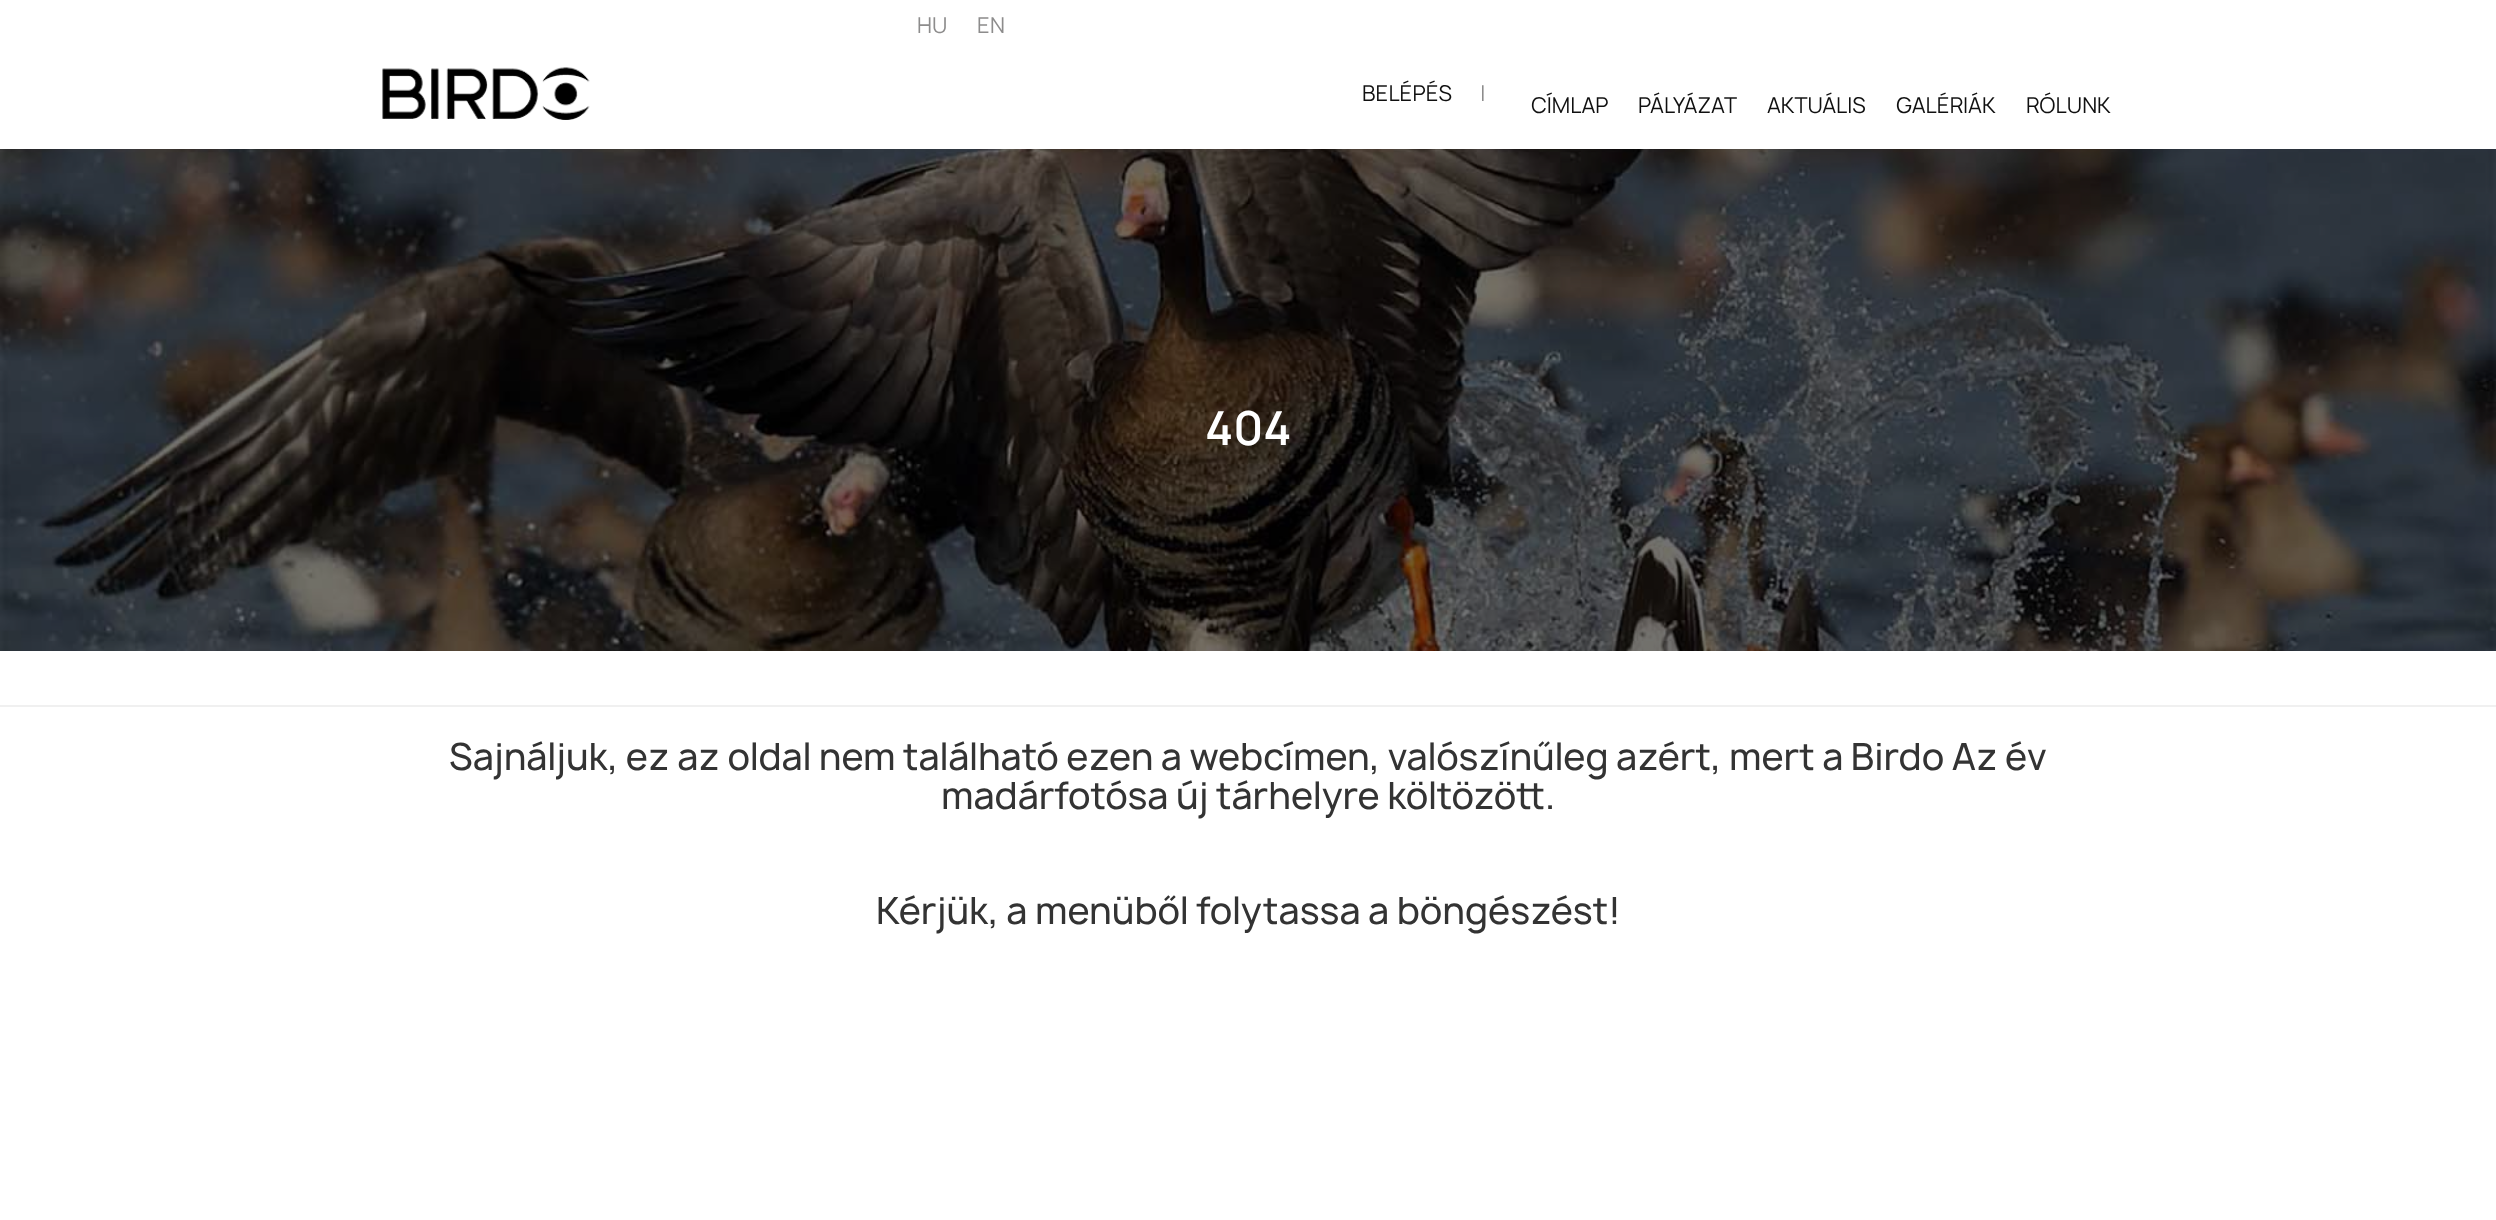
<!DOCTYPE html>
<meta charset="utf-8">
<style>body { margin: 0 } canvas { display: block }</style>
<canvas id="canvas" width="2496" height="1220"></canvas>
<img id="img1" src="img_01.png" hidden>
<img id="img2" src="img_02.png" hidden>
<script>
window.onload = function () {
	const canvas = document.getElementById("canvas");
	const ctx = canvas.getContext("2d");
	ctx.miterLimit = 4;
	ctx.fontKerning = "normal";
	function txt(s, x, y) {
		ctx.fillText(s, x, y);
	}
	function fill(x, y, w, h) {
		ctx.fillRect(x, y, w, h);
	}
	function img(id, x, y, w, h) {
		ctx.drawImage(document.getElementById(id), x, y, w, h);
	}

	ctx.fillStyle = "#FFFFFF";
	fill(0, 0, 2496, 1220);
	img("img1", 382, 67, 208, 53);
	img("img2", 0, 149, 2496, 502);
	ctx.fillStyle = "#F0F0F0";
	fill(0, 705, 2496, 2);
	ctx.font = "21px Manrope";
	ctx.fillStyle = "#8D8C8C";
	txt("HU", 917, 33);
	txt("EN", 977, 33);
	ctx.fillStyle = "#101010";
	txt("BELÉPÉS", 1362, 101);
	ctx.fillStyle = "#8D8C8C";
	txt("|", 1480, 101);
	ctx.fillStyle = "#101010";
	txt("CÍMLAP", 1531, 113);
	txt("PÁLYÁZAT", 1638, 113);
	txt("AKTUÁLIS", 1767, 113);
	txt("GALÉRIÁK", 1896, 113);
	txt("RÓLUNK", 2026, 113);
	ctx.font = "600 45px Manrope";
	ctx.fillStyle = "#FFFFFF";
	txt("404", 1205, 445);
	ctx.font = "500 36px Manrope";
	ctx.fillStyle = "#333333";
	txt("Sajnáljuk, ez az oldal nem található ezen a webcímen, valószínűleg azért, mert a Birdo Az év", 449, 770);
	txt("madárfotósa új tárhelyre költözött.", 941, 809);
	txt("Kérjük, a menüből folytassa a böngészést!", 876, 924);
};
</script>
